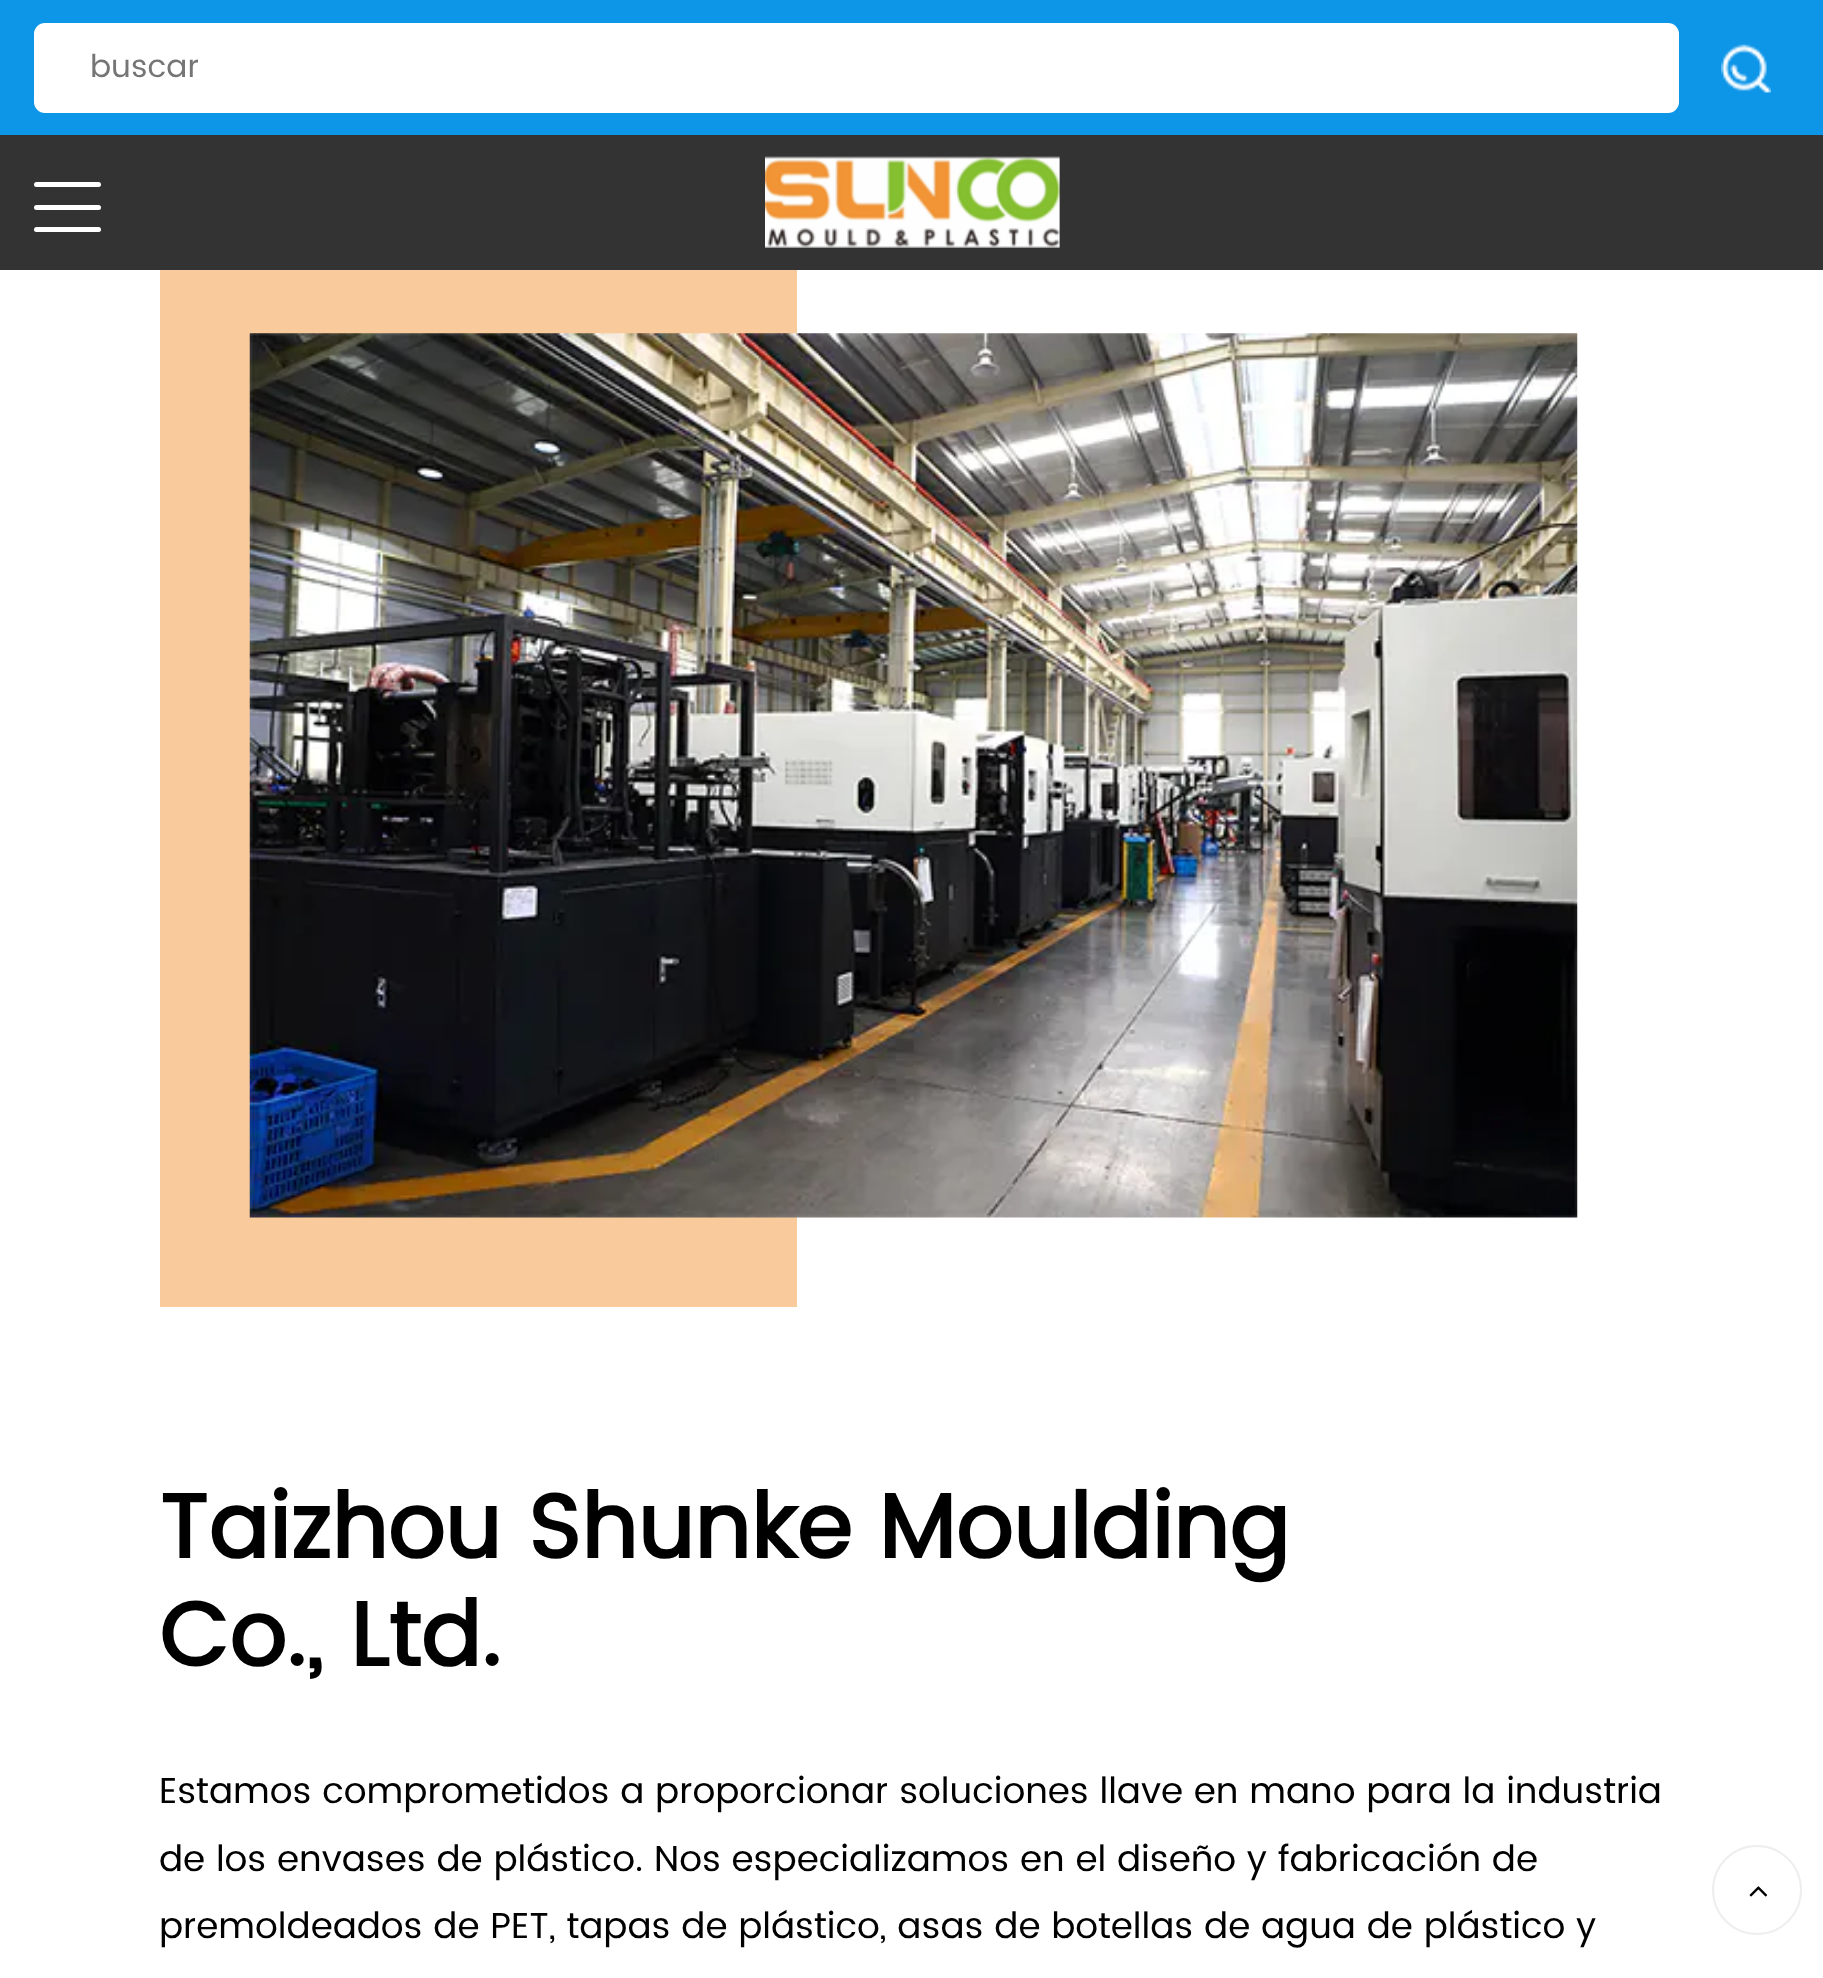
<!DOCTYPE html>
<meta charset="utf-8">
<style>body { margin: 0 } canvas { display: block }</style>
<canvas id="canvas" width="1823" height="1978"></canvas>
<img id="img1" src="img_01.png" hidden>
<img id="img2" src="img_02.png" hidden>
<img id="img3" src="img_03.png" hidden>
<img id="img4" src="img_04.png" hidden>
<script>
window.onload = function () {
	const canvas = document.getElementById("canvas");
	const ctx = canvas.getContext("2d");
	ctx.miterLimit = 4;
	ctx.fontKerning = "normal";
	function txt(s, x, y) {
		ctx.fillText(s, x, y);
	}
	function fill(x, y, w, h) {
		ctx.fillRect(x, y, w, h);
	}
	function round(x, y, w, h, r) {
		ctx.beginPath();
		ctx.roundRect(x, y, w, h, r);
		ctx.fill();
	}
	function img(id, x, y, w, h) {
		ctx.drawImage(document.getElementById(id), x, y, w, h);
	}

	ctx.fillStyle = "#FFFFFF";
	fill(0, 0, 1823, 1978);
	ctx.fillStyle = "#0D95E8";
	fill(0, 0, 1823, 135);
	ctx.fillStyle = "#FFFFFF";
	round(34, 23, 1645, 90, 11);
	img("img1", 1721, 44, 50, 49);
	ctx.fillStyle = "#333333";
	fill(0, 135, 1823, 135);
	ctx.fillStyle = "#FFFFFF";
	round(34, 182, 67, 5, 2.5);
	round(34, 205, 67, 5, 2.5);
	round(34, 227, 67, 5, 2.5);
	img("img2", 765, 156, 295, 92);
	ctx.beginPath();
	ctx.arc(1757, 1890, 44, 0, Math.PI * 2);
	ctx.strokeStyle = "#EEEEEE";
	ctx.lineWidth = 2;
	ctx.stroke();
	img("img3", 1749, 1886, 19, 11);
	ctx.fillStyle = "#F9CA9B";
	fill(160, 270, 637, 1037);
	img("img4", 249, 333, 1329, 885);
	ctx.font = "31.5px Poppins";
	ctx.fillStyle = "#757575";
	txt("buscar", 90, 77);
	ctx.font = "bold 90px Poppins";
	ctx.fillStyle = "#000000";
	txt("Taizhou Shunke Moulding", 159, 1558);
	txt("Co., Ltd.", 159, 1666);
	ctx.font = "36px Poppins";
	txt("Estamos comprometidos a proporcionar soluciones llave en mano para la industria", 159, 1803);
	txt("de los envases de plástico. Nos especializamos en el diseño y fabricación de", 159, 1871);
	txt("premoldeados de PET, tapas de plástico, asas de botellas de agua de plástico y", 159, 1938);
};
</script>
